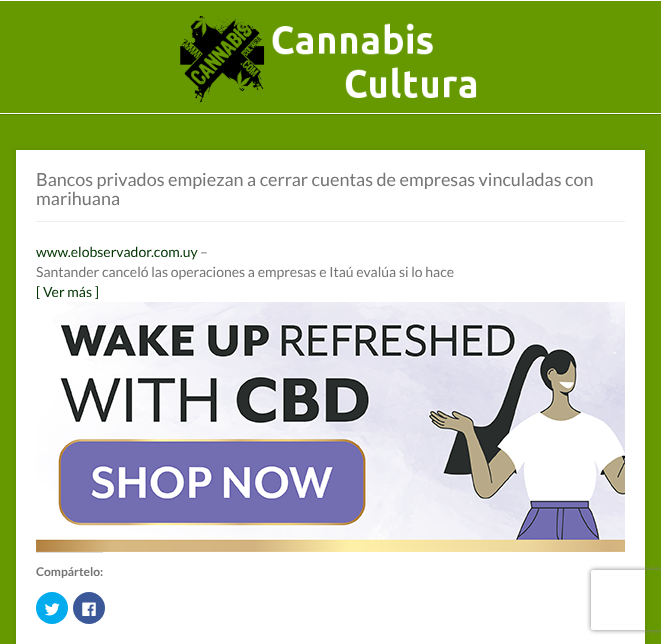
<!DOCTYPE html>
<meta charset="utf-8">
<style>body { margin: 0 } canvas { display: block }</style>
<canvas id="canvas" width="661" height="644"></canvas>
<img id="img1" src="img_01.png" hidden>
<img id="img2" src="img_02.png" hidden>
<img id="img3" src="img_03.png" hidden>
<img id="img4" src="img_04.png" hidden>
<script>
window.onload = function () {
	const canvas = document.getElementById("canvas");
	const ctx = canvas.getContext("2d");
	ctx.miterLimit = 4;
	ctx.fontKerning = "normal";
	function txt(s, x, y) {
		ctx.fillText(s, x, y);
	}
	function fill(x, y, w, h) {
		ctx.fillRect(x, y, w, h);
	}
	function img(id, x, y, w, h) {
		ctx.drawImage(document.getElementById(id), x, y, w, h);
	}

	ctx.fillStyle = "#669900";
	fill(0, 0, 661, 644);
	ctx.save();
	ctx.beginPath();
	ctx.rect(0, 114, 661, 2);
	ctx.clip();
	ctx.fillStyle = "rgba(0, 0, 0, 0.2)";
	ctx.filter = "blur(0.5px)";
	ctx.beginPath();
	ctx.rect(0, 1, 661, 114);
	ctx.fill();
	ctx.filter = "none";
	ctx.restore();
	ctx.fillStyle = "#FFFFFF";
	fill(0, 0, 661, 1);
	fill(0, 113, 661, 1);
	img("img1", 180, 16, 297, 88);
	ctx.fillStyle = "rgba(0, 0, 0, 0.1)";
	ctx.filter = "blur(2.5px)";
	ctx.beginPath();
	ctx.rect(16, 150, 629, 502);
	ctx.fill();
	ctx.filter = "none";
	ctx.fillStyle = "#FFFFFF";
	fill(16, 150, 629, 494);
	ctx.fillStyle = "#EEEEEE";
	fill(36, 221, 589, 1);
	img("img2", 36, 302, 589, 250);
	ctx.fillStyle = "#DDDDDD";
	fill(36, 552, 67, 1);
	ctx.fillStyle = "#00ACEE";
	ctx.beginPath();
	ctx.arc(52, 608, 16, 0, Math.PI * 2);
	ctx.fill();
	img("img3", 44, 603, 16, 13);
	ctx.fillStyle = "#3B5998";
	ctx.beginPath();
	ctx.arc(89, 608, 16, 0, Math.PI * 2);
	ctx.fill();
	img("img4", 82, 602, 14, 14);
	ctx.save();
	ctx.beginPath();
	ctx.moveTo(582, 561);
	ctx.lineTo(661, 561);
	ctx.lineTo(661, 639);
	ctx.lineTo(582, 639);
	ctx.closePath();
	ctx.moveTo(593, 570);
	ctx.lineTo(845, 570);
	ctx.bezierCurveTo(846, 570, 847, 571, 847, 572);
	ctx.lineTo(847, 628);
	ctx.bezierCurveTo(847, 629, 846, 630, 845, 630);
	ctx.lineTo(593, 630);
	ctx.bezierCurveTo(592, 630, 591, 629, 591, 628);
	ctx.lineTo(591, 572);
	ctx.bezierCurveTo(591, 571, 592, 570, 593, 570);
	ctx.closePath();
	ctx.clip("evenodd");
	ctx.fillStyle = "#808080";
	ctx.filter = "blur(2.5px)";
	ctx.beginPath();
	ctx.roundRect(591, 570, 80, 60, 2);
	ctx.fill();
	ctx.filter = "none";
	ctx.restore();
	ctx.font = "18px Lato";
	ctx.fillStyle = "#757575";
	txt("Bancos privados empiezan a cerrar cuentas de empresas vinculadas con", 36, 186);
	txt("marihuana", 36, 205);
	ctx.font = "14px Lato";
	ctx.fillStyle = "#003300";
	txt("www.elobservador.com.uy", 36, 257);
	ctx.fillStyle = "#757575";
	txt("–", 200, 257);
	txt("Santander canceló las operaciones a empresas e Itaú evalúa si lo hace", 36, 277);
	ctx.fillStyle = "#003300";
	txt("[ Ver más ]", 36, 297);
	ctx.font = "bold 12px Lato";
	ctx.fillStyle = "#757575";
	txt("Compártelo:", 36, 576);
};
</script>
